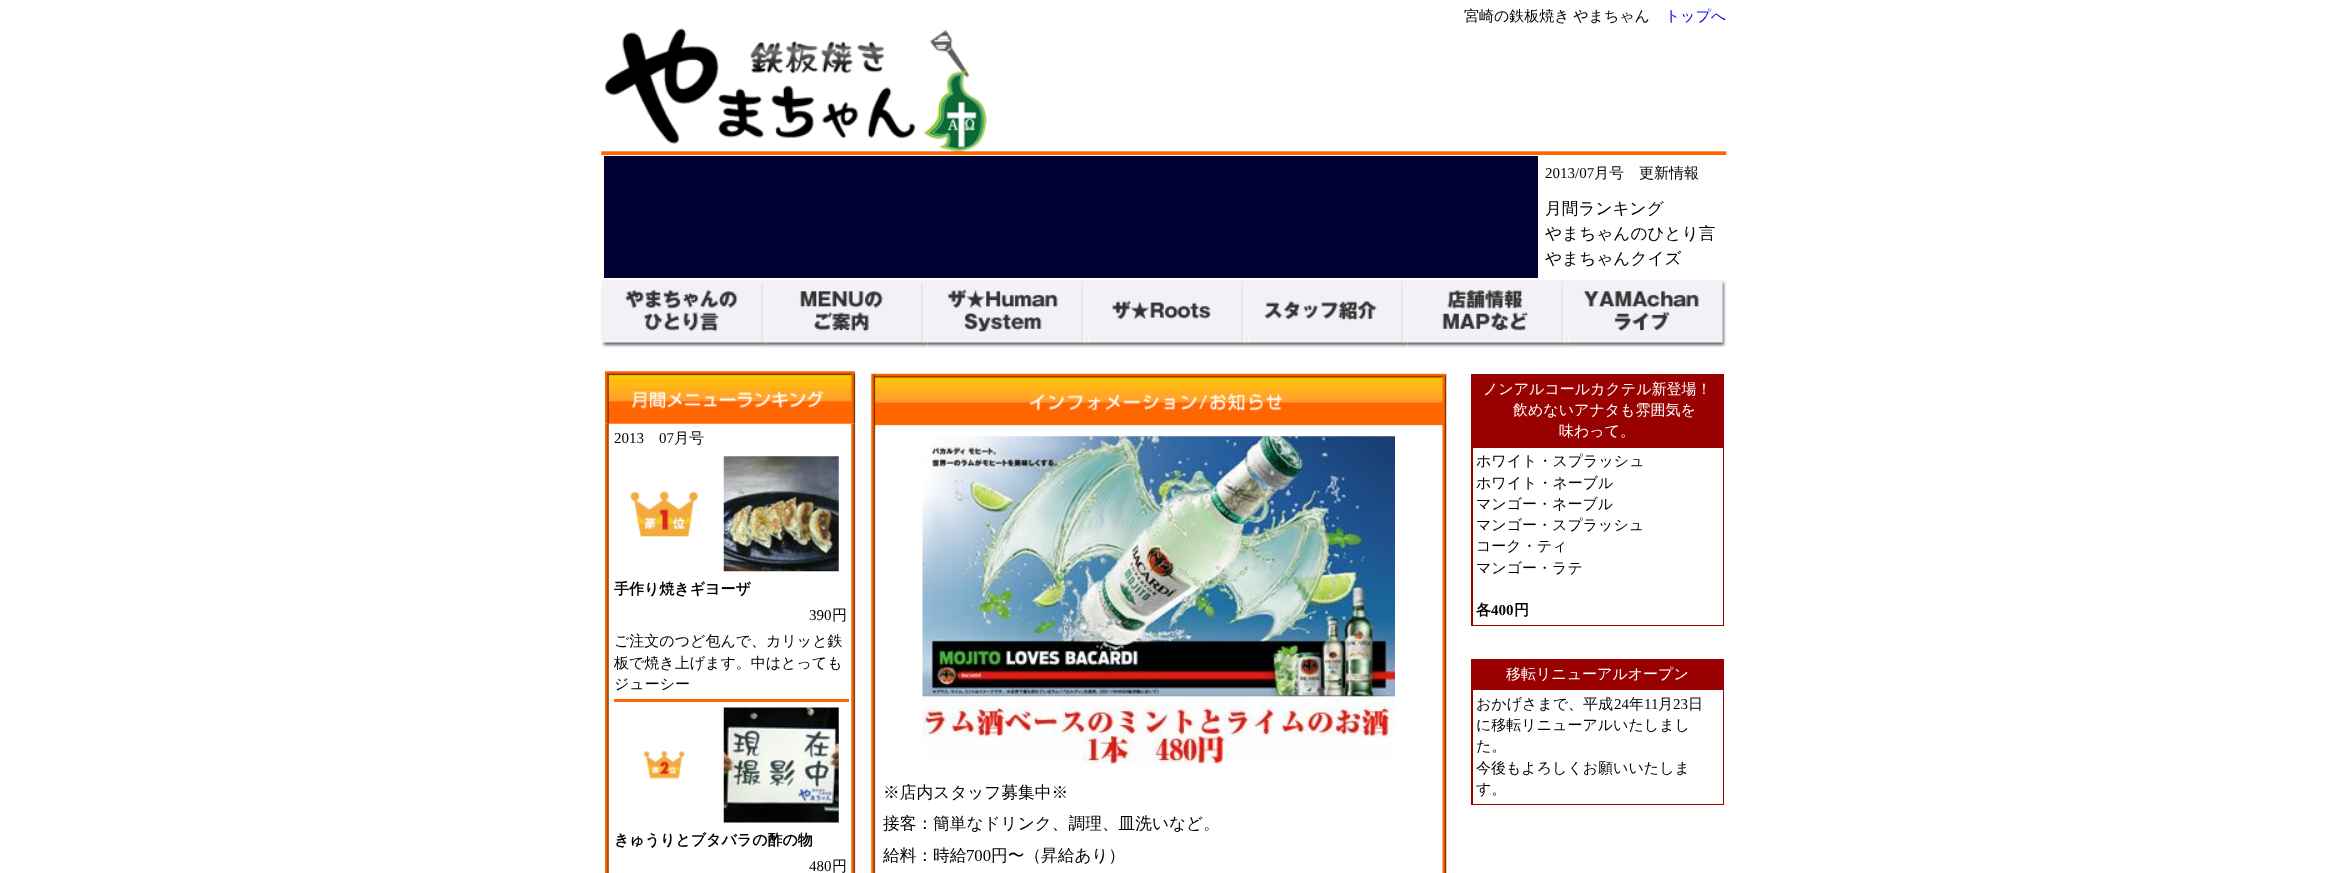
<!DOCTYPE html>
<meta charset="utf-8">
<style>body { margin: 0 } canvas { display: block }</style>
<canvas id="canvas" width="2328" height="873"></canvas>
<img id="img1" src="img_01.png" hidden>
<img id="img2" src="img_02.png" hidden>
<img id="img3" src="img_03.png" hidden>
<img id="img4" src="img_04.png" hidden>
<img id="img5" src="img_05.png" hidden>
<img id="img6" src="img_06.png" hidden>
<img id="img7" src="img_07.png" hidden>
<img id="img8" src="img_08.png" hidden>
<img id="img9" src="img_09.png" hidden>
<img id="img10" src="img_11.png" hidden>
<img id="img11" src="img_16.png" hidden>
<img id="img12" src="img_10.png" hidden>
<img id="img13" src="img_12.png" hidden>
<img id="img14" src="img_13.png" hidden>
<img id="img15" src="img_14.png" hidden>
<img id="img16" src="img_15.png" hidden>
<img id="img17" src="img_17.png" hidden>
<img id="img18" src="img_18.png" hidden>
<img id="img19" src="img_19.png" hidden>
<img id="img20" src="img_20.png" hidden>
<script>
window.onload = function () {
	const canvas = document.getElementById("canvas");
	const ctx = canvas.getContext("2d");
	ctx.miterLimit = 4;
	ctx.fontKerning = "normal";
	function txt(s, x, y) {
		ctx.fillText(s, x, y);
	}
	function fill(x, y, w, h) {
		ctx.fillRect(x, y, w, h);
	}
	function img(id, x, y, w, h) {
		ctx.drawImage(document.getElementById(id), x, y, w, h);
	}

	ctx.fillStyle = "#FFFFFF";
	fill(0, 0, 2328, 873);
	img("img1", 604, 28, 383, 122);
	ctx.fillStyle = "#F8F7FA";
	fill(1684, 76, 1, 2);
	img("img2", 601, 150, 1126, 5);
	ctx.fillStyle = "#000033";
	fill(604, 156, 934, 122);
	img("img3", 601, 280, 166, 68);
	img("img4", 766, 280, 162, 68);
	img("img5", 927, 280, 162, 68);
	img("img6", 1088, 280, 161, 68);
	img("img7", 1248, 280, 160, 68);
	img("img8", 1407, 280, 162, 68);
	img("img9", 1568, 280, 159, 68);
	img("img10", 605, 423, 4, 450);
	img("img11", 851, 423, 5, 450);
	img("img12", 605, 371, 251, 53);
	img("img13", 629, 491, 69, 46);
	img("img14", 723, 456, 116, 116);
	ctx.fillStyle = "#FF6600";
	fill(614, 699, 235, 3);
	img("img15", 643, 751, 42, 28);
	img("img16", 723, 707, 116, 116);
	img("img17", 871, 373, 576, 57);
	img("img18", 871, 430, 5, 443);
	img("img19", 922, 436, 473, 328);
	img("img20", 1442, 430, 5, 443);
	ctx.fillStyle = "#990000";
	fill(1471, 374, 253, 252);
	ctx.fillStyle = "#FFFFFF";
	fill(1473, 448, 250, 177);
	ctx.fillStyle = "#990000";
	fill(1471, 659, 253, 146);
	ctx.fillStyle = "#FFFFFF";
	fill(1473, 690, 250, 114);
	ctx.wordSpacing = "-1px";
	ctx.font = "500 15px WenQuanYi Zen Hei";
	ctx.fillStyle = "#000000";
	txt("宮崎の鉄板焼き やまちゃん", 1464, 21);
	ctx.wordSpacing = "0px";
	ctx.fillStyle = "#0000EE";
	txt("トップへ", 1665, 21);
	ctx.font = "15px Liberation Serif";
	ctx.fillStyle = "#000000";
	txt("2013/07", 1545, 178);
	ctx.font = "500 15px WenQuanYi Zen Hei";
	txt("月号　更新情報", 1594, 178);
	ctx.font = "500 16.7px WenQuanYi Zen Hei";
	txt("月間ランキング", 1545, 214);
	txt("やまちゃんのひとり言", 1545, 239);
	txt("やまちゃんクイズ", 1545, 264);
	ctx.font = "15px Liberation Serif";
	txt("2013", 614, 443);
	txt("07", 659, 443);
	ctx.font = "500 15px WenQuanYi Zen Hei";
	txt("月号", 674, 443);
	ctx.font = "bold 15px WenQuanYi Zen Hei";
	txt("手作り焼きギヨーザ", 614, 594);
	ctx.font = "15px Liberation Serif";
	txt("390", 809, 620);
	ctx.font = "500 15px WenQuanYi Zen Hei";
	txt("円", 832, 620);
	txt("ご注文のつど包んで、カリッと鉄", 614, 646);
	txt("板で焼き上げます。中はとっても", 614, 668);
	txt("ジューシー", 614, 689);
	ctx.font = "bold 15px WenQuanYi Zen Hei";
	txt("きゅうりとブタバラの酢の物", 614, 845);
	ctx.font = "15px Liberation Serif";
	txt("480", 809, 871);
	ctx.font = "500 15px WenQuanYi Zen Hei";
	txt("円", 832, 871);
	ctx.font = "500 16.7px WenQuanYi Zen Hei";
	txt("※店内スタッフ募集中※", 883, 798);
	txt("接客：簡単なドリンク、調理、皿洗いなど。", 883, 829);
	txt("給料：時給", 883, 861);
	ctx.font = "16.7px Liberation Serif";
	txt("700", 966, 861);
	ctx.font = "500 16.7px WenQuanYi Zen Hei";
	txt("円〜（昇給あり）", 991, 861);
	ctx.font = "500 15px WenQuanYi Zen Hei";
	ctx.fillStyle = "#FFFFFF";
	txt("ノンアルコールカクテル新登場！", 1483, 394);
	txt("飲めないアナタも雰囲気を", 1513, 415);
	txt("味わって。", 1559, 436);
	ctx.fillStyle = "#000000";
	txt("ホワイト・スプラッシュ", 1476, 466);
	txt("ホワイト・ネーブル", 1476, 488);
	txt("マンゴー・ネーブル", 1476, 509);
	txt("マンゴー・スプラッシュ", 1476, 530);
	txt("コーク・ティ", 1476, 551);
	txt("マンゴー・ラテ", 1476, 573);
	ctx.font = "bold 15px WenQuanYi Zen Hei";
	txt("各", 1476, 615);
	ctx.font = "bold 15px Liberation Serif";
	txt("400", 1491, 615);
	ctx.font = "bold 15px WenQuanYi Zen Hei";
	txt("円", 1514, 615);
	ctx.font = "500 15px WenQuanYi Zen Hei";
	ctx.fillStyle = "#FFFFFF";
	txt("移転リニューアルオープン", 1506, 679);
	ctx.fillStyle = "#000000";
	txt("おかげさまで、平成", 1476, 709);
	ctx.font = "15px Liberation Serif";
	txt("24", 1614, 709);
	ctx.font = "500 15px WenQuanYi Zen Hei";
	txt("年", 1629, 709);
	ctx.font = "15px Liberation Serif";
	txt("11", 1644, 709);
	ctx.font = "500 15px WenQuanYi Zen Hei";
	txt("月", 1658, 709);
	ctx.font = "15px Liberation Serif";
	txt("23", 1673, 709);
	ctx.font = "500 15px WenQuanYi Zen Hei";
	txt("日", 1688, 709);
	txt("に移転リニューアルいたしまし", 1476, 730);
	txt("た。", 1476, 751);
	txt("今後もよろしくお願いいたしま", 1476, 773);
	txt("す。", 1476, 794);
};
</script>
